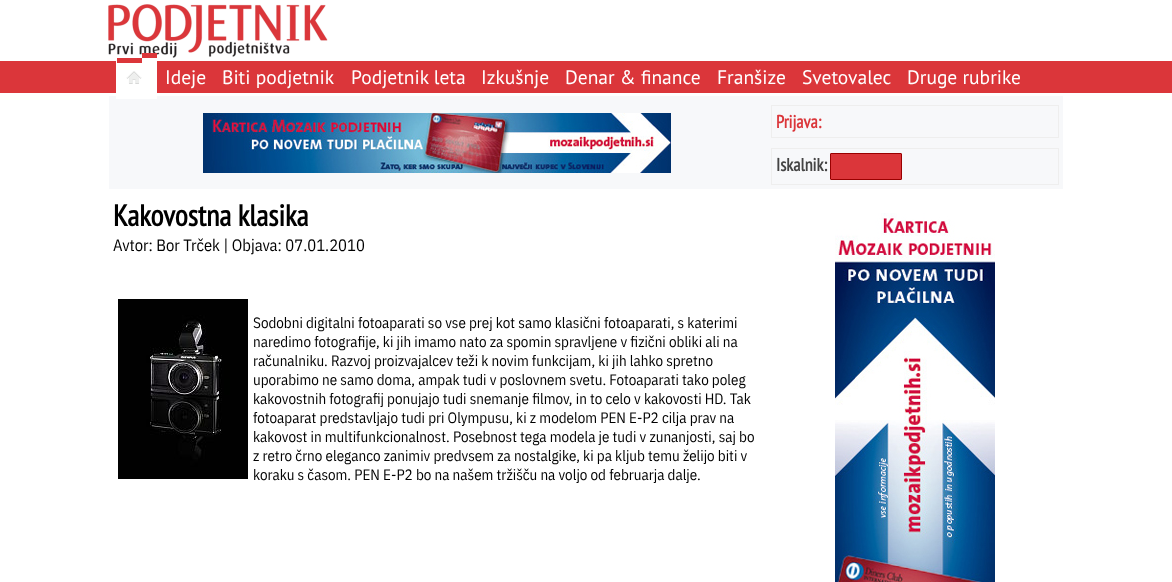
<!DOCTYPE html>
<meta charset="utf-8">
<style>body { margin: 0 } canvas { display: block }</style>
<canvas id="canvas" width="1172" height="582"></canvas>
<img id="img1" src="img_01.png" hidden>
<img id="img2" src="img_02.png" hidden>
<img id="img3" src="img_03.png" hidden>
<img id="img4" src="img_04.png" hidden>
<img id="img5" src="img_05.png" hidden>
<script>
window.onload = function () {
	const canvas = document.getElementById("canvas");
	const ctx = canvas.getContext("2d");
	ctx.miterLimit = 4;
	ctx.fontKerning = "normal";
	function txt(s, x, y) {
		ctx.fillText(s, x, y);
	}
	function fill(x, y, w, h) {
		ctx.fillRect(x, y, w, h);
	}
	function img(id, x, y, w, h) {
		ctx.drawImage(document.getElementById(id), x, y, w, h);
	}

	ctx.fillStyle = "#FFFFFF";
	fill(0, 0, 1172, 582);
	img("img1", 108, 4, 220, 54);
	ctx.fillStyle = "#DB363A";
	fill(0, 61, 1172, 32);
	fill(142, 53, 15, 5);
	ctx.fillStyle = "#F7F8FA";
	fill(109, 96, 954, 93);
	ctx.fillStyle = "#FFFFFF";
	ctx.beginPath();
	ctx.roundRect(116, 58, 26, 41, [1, 0, 0, 0]);
	ctx.fill();
	ctx.fillStyle = "#DB363A";
	fill(117, 58, 25, 5);
	img("img2", 126, 71, 16, 13);
	ctx.fillStyle = "#FFFFFF";
	fill(142, 61, 15, 38);
	img("img3", 203, 113, 468, 60);
	ctx.strokeStyle = "#EEEEEE";
	ctx.strokeRect(771.5, 105.5, 287, 32);
	ctx.strokeRect(771.5, 148.5, 287, 36);
	ctx.fillStyle = "#DB363A";
	ctx.beginPath();
	ctx.roundRect(830.5, 153.5, 71, 26, 0.5);
	ctx.fill();
	ctx.strokeStyle = "#990000";
	ctx.stroke();
	img("img4", 118, 299, 130, 180);
	img("img5", 835, 213, 160, 369);
	ctx.font = "19.5px PT Sans";
	ctx.fillStyle = "#FFFFFF";
	txt("Ideje", 165, 84);
	txt("Biti podjetnik", 222, 84);
	txt("Podjetnik leta", 351, 84);
	txt("Izkušnje", 481, 84);
	txt("Denar & finance", 565, 84);
	txt("Franšize", 717, 84);
	txt("Svetovalec", 802, 84);
	txt("Druge rubrike", 907, 84);
	ctx.font = "bold 18px PT Sans Narrow";
	ctx.fillStyle = "#DB363A";
	txt("Prijava:", 776, 128);
	ctx.fillStyle = "#444444";
	txt("Iskalnik:", 776, 171);
	ctx.font = "bold 30px PT Sans Narrow";
	ctx.fillStyle = "#000000";
	txt("Kakovostna klasika", 113, 226);
	ctx.font = "16.5px IBM Plex Sans Condensed";
	txt("Avtor: Bor Trček | Objava: 07.01.2010", 113, 251);
	ctx.font = "15px IBM Plex Sans Condensed";
	txt("Sodobni digitalni fotoaparati so vse prej kot samo klasični fotoaparati, s katerimi", 253, 328);
	txt("naredimo fotografije, ki jih imamo nato za spomin spravljene v fizični obliki ali na", 253, 347);
	txt("računalniku. Razvoj proizvajalcev teži k novim funkcijam, ki jih lahko spretno", 253, 366);
	txt("uporabimo ne samo doma, ampak tudi v poslovnem svetu. Fotoaparati tako poleg", 253, 385);
	txt("kakovostnih fotografij ponujajo tudi snemanje filmov, in to celo v kakovosti HD. Tak", 253, 404);
	txt("fotoaparat predstavljajo tudi pri Olympusu, ki z modelom PEN E-P2 cilja prav na", 253, 423);
	txt("kakovost in multifunkcionalnost. Posebnost tega modela je tudi v zunanjosti, saj bo", 253, 442);
	txt("z retro črno eleganco zanimiv predvsem za nostalgike, ki pa kljub temu želijo biti v", 253, 461);
	txt("koraku s časom. PEN E-P2 bo na našem tržišču na voljo od februarja dalje.", 253, 480);
};
</script>
